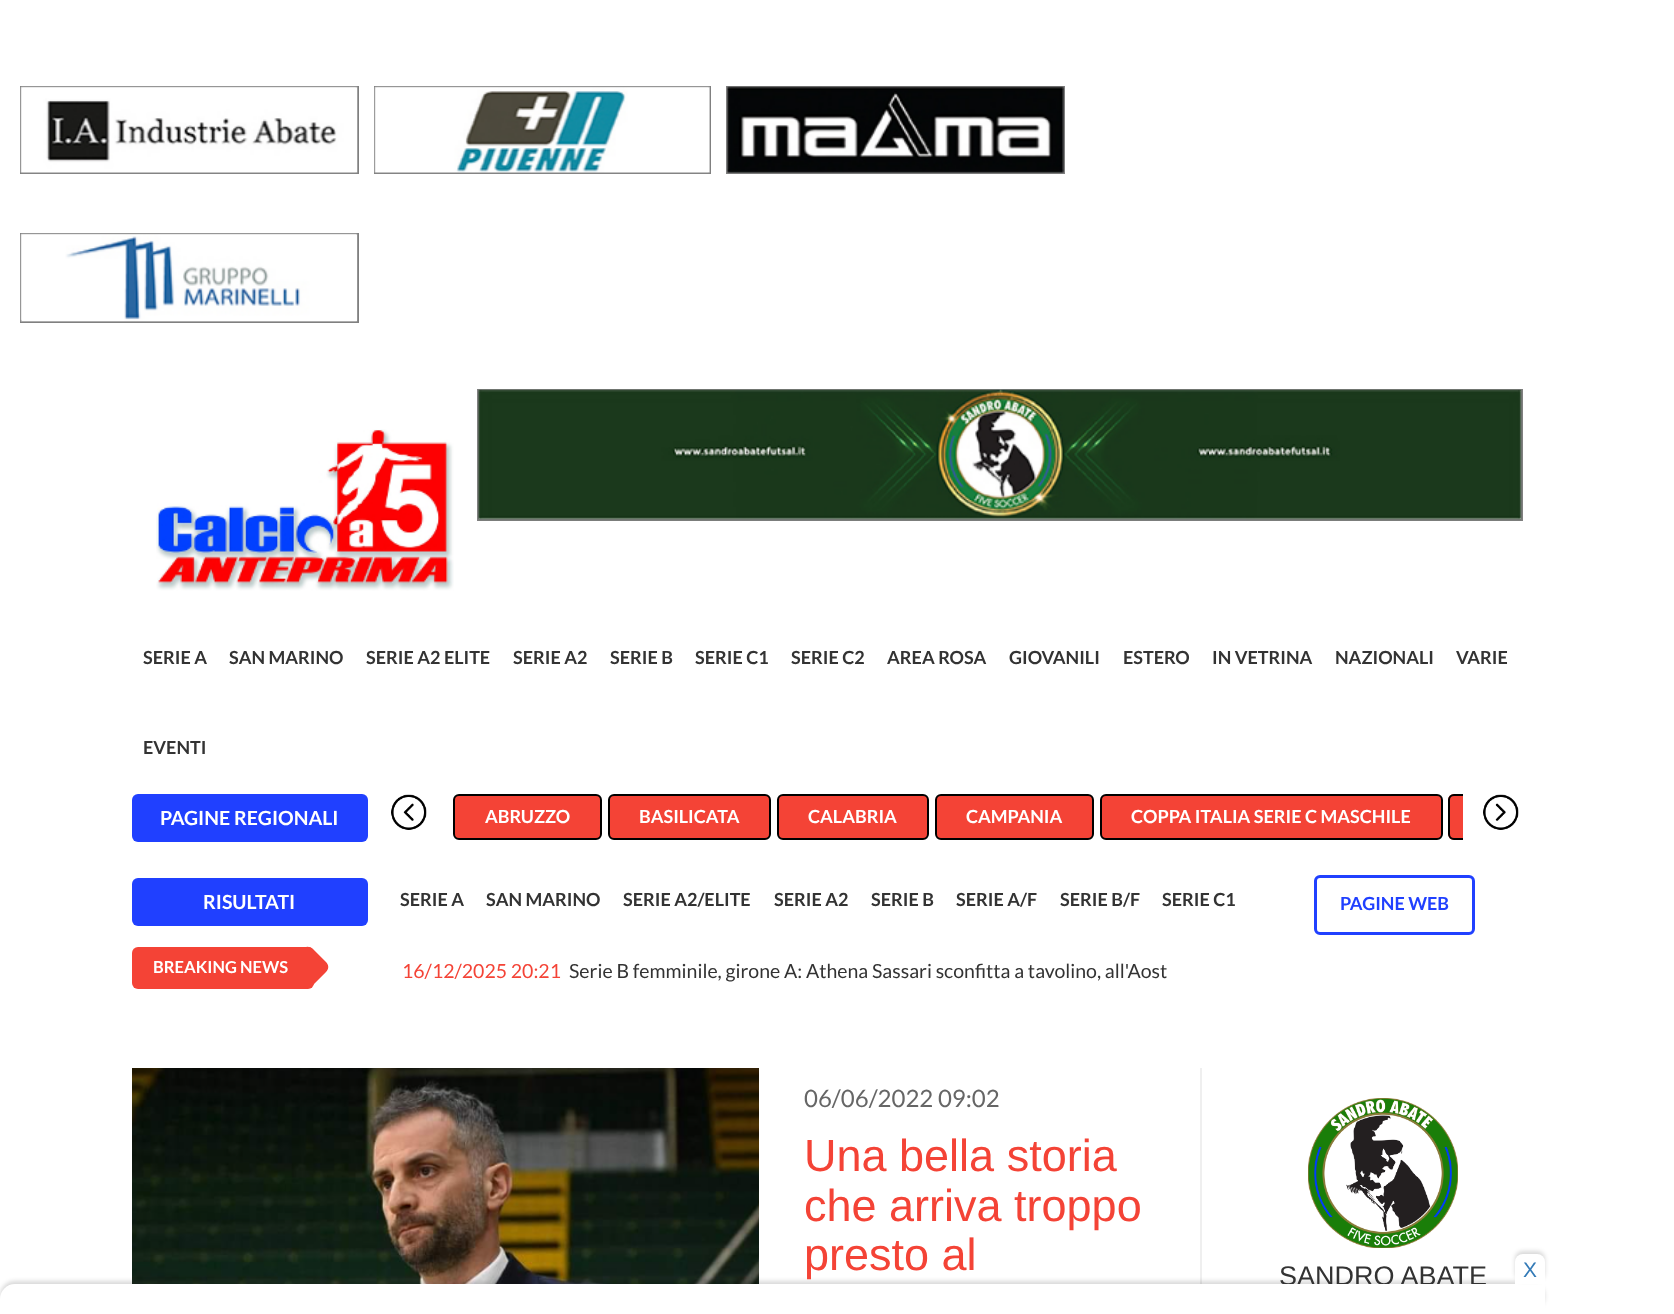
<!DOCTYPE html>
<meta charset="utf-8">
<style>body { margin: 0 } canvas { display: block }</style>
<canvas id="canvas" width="1674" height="1314"></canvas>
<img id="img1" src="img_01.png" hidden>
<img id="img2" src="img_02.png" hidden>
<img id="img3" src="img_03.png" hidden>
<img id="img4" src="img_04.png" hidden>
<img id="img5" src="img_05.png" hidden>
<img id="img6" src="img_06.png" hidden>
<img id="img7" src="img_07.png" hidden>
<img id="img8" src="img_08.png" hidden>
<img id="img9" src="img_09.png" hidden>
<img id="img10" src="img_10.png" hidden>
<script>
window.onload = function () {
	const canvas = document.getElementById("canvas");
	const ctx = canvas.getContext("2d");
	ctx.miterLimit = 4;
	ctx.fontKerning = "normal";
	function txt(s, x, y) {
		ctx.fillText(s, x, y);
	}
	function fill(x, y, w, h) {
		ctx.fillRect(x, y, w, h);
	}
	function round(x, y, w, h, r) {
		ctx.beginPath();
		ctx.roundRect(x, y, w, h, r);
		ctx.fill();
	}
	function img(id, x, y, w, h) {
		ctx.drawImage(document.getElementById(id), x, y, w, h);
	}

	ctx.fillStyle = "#FFFFFF";
	fill(0, 0, 1674, 1314);
	ctx.strokeStyle = "#808080";
	ctx.lineWidth = 2;
	ctx.strokeRect(21, 87, 337, 86);
	img("img1", 20, 86, 338, 88);
	ctx.strokeRect(375, 87, 335, 86);
	img("img2", 374, 86, 336, 88);
	ctx.strokeRect(727, 87, 337, 86);
	img("img3", 727, 86, 337, 88);
	ctx.strokeRect(21, 234, 337, 88);
	img("img4", 20, 233, 338, 89);
	img("img5", 156, 429, 298, 162);
	ctx.strokeRect(478, 390, 1044, 130);
	img("img6", 478, 389, 1044, 132);
	fill(305, 946, 5, 1);
	ctx.fillStyle = "#2040FF";
	round(132, 794, 236, 48, 6);
	img("img7", 391, 794, 36, 36);
	ctx.fillStyle = "#F44336";
	ctx.beginPath();
	ctx.roundRect(454, 795, 147, 44, 5);
	ctx.fill();
	ctx.strokeStyle = "#000000";
	ctx.stroke();
	ctx.beginPath();
	ctx.roundRect(609, 795, 161, 44, 5);
	ctx.fill();
	ctx.stroke();
	ctx.beginPath();
	ctx.roundRect(778, 795, 150, 44, 5);
	ctx.fill();
	ctx.stroke();
	ctx.beginPath();
	ctx.roundRect(936, 795, 157, 44, 5);
	ctx.fill();
	ctx.stroke();
	ctx.beginPath();
	ctx.roundRect(1101, 795, 341, 44, 5);
	ctx.fill();
	ctx.stroke();
	ctx.beginPath();
	ctx.roundRect(1448, 794, 15, 46, [6, 0, 0, 6]);
	ctx.fill();
	ctx.save();
	ctx.beginPath();
	ctx.rect(446, 794, 1017, 46);
	ctx.clip();
	ctx.beginPath();
	ctx.roundRect(1449, 795, 220, 44, 5);
	ctx.stroke();
	ctx.restore();
	img("img8", 1483, 794, 36, 36);
	ctx.fillStyle = "#2040FF";
	round(132, 878, 236, 48, 6);
	ctx.beginPath();
	ctx.roundRect(1315.5, 876.5, 158, 57, 4.5);
	ctx.strokeStyle = "#2040FF";
	ctx.lineWidth = 3;
	ctx.stroke();
	ctx.fillStyle = "#F44336";
	round(132, 947, 182, 42, 6);
	ctx.fillStyle = "#EFEFEF";
	fill(1200, 1068, 2, 216);
	img("img9", 132, 1068, 627, 216);
	img("img10", 1308, 1098, 150, 150);
	ctx.fillStyle = "rgba(0, 0, 0, 0.15)";
	ctx.filter = "blur(2px)";
	ctx.beginPath();
	ctx.roundRect(0, 1281, 1545, 30, 15);
	ctx.fill();
	ctx.filter = "none";
	ctx.font = "bold 18px Lato";
	ctx.fillStyle = "#333333";
	txt("SERIE A", 143, 664);
	txt("SAN MARINO", 229, 664);
	txt("SERIE A2 ELITE", 366, 664);
	txt("SERIE A2", 513, 664);
	txt("SERIE B", 610, 664);
	txt("SERIE C1", 695, 664);
	txt("SERIE C2", 791, 664);
	txt("AREA ROSA", 887, 664);
	txt("GIOVANILI", 1009, 664);
	txt("ESTERO", 1123, 664);
	txt("IN VETRINA", 1212, 664);
	txt("NAZIONALI", 1335, 664);
	txt("VARIE", 1456, 664);
	txt("EVENTI", 143, 754);
	ctx.font = "bold 19.5px Lato";
	ctx.fillStyle = "#FFFFFF";
	txt("PAGINE REGIONALI", 160, 825);
	ctx.font = "bold 18px Lato";
	txt("ABRUZZO", 485, 823);
	txt("BASILICATA", 639, 823);
	txt("CALABRIA", 808, 823);
	txt("CAMPANIA", 966, 823);
	txt("COPPA ITALIA SERIE C MASCHILE", 1131, 823);
	ctx.font = "bold 19.5px Lato";
	txt("RISULTATI", 203, 909);
	ctx.font = "bold 18px Lato";
	ctx.fillStyle = "#333333";
	txt("SERIE A", 400, 906);
	txt("SAN MARINO", 486, 906);
	txt("SERIE A2/ELITE", 623, 906);
	txt("SERIE A2", 774, 906);
	txt("SERIE B", 871, 906);
	txt("SERIE A/F", 956, 906);
	txt("SERIE B/F", 1060, 906);
	txt("SERIE C1", 1162, 906);
	ctx.fillStyle = "#2040FF";
	txt("PAGINE WEB", 1340, 910);
	ctx.font = "bold 16.5px Lato";
	ctx.fillStyle = "#FFFFFF";
	txt("BREAKING NEWS", 153, 973);
	ctx.fillStyle = "#F44336";
	ctx.beginPath();
	ctx.moveTo(313, 949);
	ctx.lineTo(326, 962);
	ctx.bezierCurveTo(329, 965, 329, 969, 326, 972);
	ctx.lineTo(313, 985);
	ctx.bezierCurveTo(310, 988, 305, 988, 302, 985);
	ctx.lineTo(290, 972);
	ctx.bezierCurveTo(287, 969, 287, 965, 290, 962);
	ctx.lineTo(302, 949);
	ctx.bezierCurveTo(305, 946, 310, 946, 313, 949);
	ctx.closePath();
	ctx.fill();
	ctx.font = "19.5px Lato";
	txt("16/12/2025 20:21", 402, 978);
	ctx.fillStyle = "#333333";
	txt("Serie B femminile, girone A: Athena Sassari sconfitta a tavolino, all'Aost", 569, 978);
	ctx.font = "24px Lato";
	ctx.fillStyle = "#666666";
	txt("06/06/2022 09:02", 804, 1107);
	ctx.font = "45px Liberation Sans";
	ctx.fillStyle = "#F44336";
	txt("Una bella storia", 804, 1171);
	txt("che arriva troppo", 804, 1221);
	txt("presto al", 804, 1270);
	ctx.font = "27px Liberation Sans";
	ctx.fillStyle = "#333333";
	txt("SANDRO ABATE", 1279, 1285);
	ctx.fillStyle = "#FFFFFF";
	ctx.beginPath();
	ctx.roundRect(0, 1284, 1545, 30, [15, 0, 0, 0]);
	ctx.fill();
	ctx.fillStyle = "rgba(0, 0, 0, 0.15)";
	ctx.filter = "blur(2px)";
	ctx.beginPath();
	ctx.roundRect(1515, 1251, 30, 30, 8);
	ctx.fill();
	ctx.filter = "none";
	ctx.fillStyle = "#FFFFFF";
	ctx.beginPath();
	ctx.roundRect(1515, 1254, 30, 30, [8, 8, 0, 0]);
	ctx.fill();
	ctx.font = "21px Liberation Sans";
	ctx.fillStyle = "#337AB7";
	txt("X", 1523, 1277);
};
</script>
